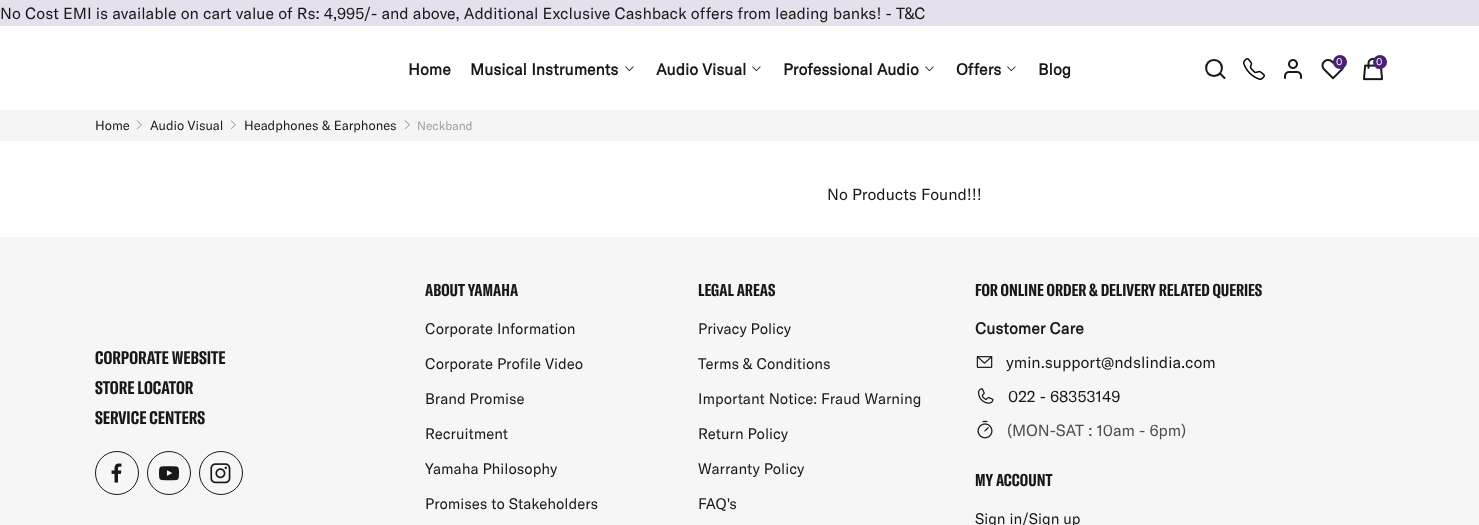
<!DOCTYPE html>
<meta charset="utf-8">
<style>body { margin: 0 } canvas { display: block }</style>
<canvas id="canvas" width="1479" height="525"></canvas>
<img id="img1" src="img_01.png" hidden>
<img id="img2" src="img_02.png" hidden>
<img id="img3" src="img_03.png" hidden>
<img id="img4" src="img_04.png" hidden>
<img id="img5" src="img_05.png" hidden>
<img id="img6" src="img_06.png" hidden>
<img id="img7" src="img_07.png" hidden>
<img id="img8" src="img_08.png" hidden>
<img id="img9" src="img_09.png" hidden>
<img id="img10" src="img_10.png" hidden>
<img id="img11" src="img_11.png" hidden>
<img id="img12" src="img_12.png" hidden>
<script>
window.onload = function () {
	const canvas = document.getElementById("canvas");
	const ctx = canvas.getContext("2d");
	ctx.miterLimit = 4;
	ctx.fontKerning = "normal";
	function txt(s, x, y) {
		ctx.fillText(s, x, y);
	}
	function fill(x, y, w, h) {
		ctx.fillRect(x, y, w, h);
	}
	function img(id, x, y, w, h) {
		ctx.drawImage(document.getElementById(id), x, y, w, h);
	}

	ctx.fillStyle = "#FFFFFF";
	fill(0, 0, 1479, 525);
	ctx.fillStyle = "#E6E0EC";
	fill(0, 0, 1479, 26);
	ctx.beginPath();
	ctx.moveTo(1214, 76);
	ctx.bezierCurveTo(1224.5, 76, 1224.5, 60, 1214, 60);
	ctx.bezierCurveTo(1203.5, 60, 1203.5, 76, 1214, 76);
	ctx.closePath();
	ctx.moveTo(1224.5, 78);
	ctx.lineTo(1220, 73.5);
	ctx.strokeStyle = "#181818";
	ctx.lineWidth = 2;
	ctx.lineCap = "round";
	ctx.lineJoin = "round";
	ctx.stroke();
	img("img1", 1243, 58, 22, 22);
	img("img2", 1284, 59, 18, 20);
	img("img3", 1321, 59, 24, 21);
	ctx.fillStyle = "#4B1E78";
	ctx.beginPath();
	ctx.arc(1340, 62, 7, 0, Math.PI * 2);
	ctx.fill();
	img("img4", 1363, 57, 20, 24);
	ctx.beginPath();
	ctx.arc(1380, 62, 7, 0, Math.PI * 2);
	ctx.fill();
	img("img5", 625, 66, 9, 6);
	img("img5", 752, 66, 9, 6);
	img("img5", 925, 66, 9, 6);
	img("img5", 1007, 66, 9, 6);
	ctx.fillStyle = "#F6F5F5";
	fill(0, 110, 1479, 31);
	img("img6", 136, 120, 6, 10);
	img("img6", 230, 120, 6, 10);
	img("img6", 404, 120, 6, 10);
	ctx.fillStyle = "#F6F6F6";
	fill(0, 237, 1479, 288);
	ctx.beginPath();
	ctx.arc(117, 473, 21.5, 0, Math.PI * 2);
	ctx.lineWidth = 1;
	ctx.stroke();
	img("img7", 111, 463, 11, 20);
	ctx.beginPath();
	ctx.arc(169, 473, 21.5, 0, Math.PI * 2);
	ctx.stroke();
	img("img8", 159, 466, 20, 15);
	ctx.beginPath();
	ctx.arc(221, 473, 21.5, 0, Math.PI * 2);
	ctx.stroke();
	img("img9", 210, 463, 21, 21);
	img("img10", 976, 356, 17, 12);
	img("img11", 977, 388, 17, 16);
	img("img12", 977, 420, 16, 19);
	ctx.font = "16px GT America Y";
	ctx.fillStyle = "#181818";
	txt("No Cost EMI is available on cart value of Rs: 4,995/- and above, Additional Exclusive Cashback offers from leading banks! - T&C", 0, 19);
	ctx.font = "10px GT America Y";
	ctx.fillStyle = "#FFFFFF";
	txt("0", 1336, 65);
	txt("0", 1376, 65);
	ctx.font = "bold 16px 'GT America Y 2'";
	ctx.fillStyle = "#181818";
	txt("Home", 408, 75);
	txt("Musical Instruments", 470, 75);
	txt("Audio Visual", 656, 75);
	txt("Professional Audio", 783, 75);
	txt("Offers", 956, 75);
	txt("Blog", 1038, 75);
	ctx.font = "13px GT America Y";
	txt("Home", 95, 130);
	txt("Audio Visual", 150, 130);
	txt("Headphones & Earphones", 244, 130);
	ctx.font = "12px GT America Y";
	ctx.fillStyle = "#A0A0A0";
	txt("Neckband", 417, 130);
	ctx.font = "16px GT America Y";
	ctx.fillStyle = "#181818";
	txt("No Products Found!!!", 827, 200);
	ctx.font = "bold 18px GT America Y";
	txt("CORPORATE WEBSITE", 95, 364);
	txt("STORE LOCATOR", 95, 394);
	txt("SERVICE CENTERS", 95, 424);
	ctx.font = "bold 17px GT America Y";
	txt("ABOUT YAMAHA", 425, 296);
	ctx.font = "15px GT America Y";
	txt("Corporate Information", 425, 334);
	txt("Corporate Profile Video", 425, 369);
	txt("Brand Promise", 425, 404);
	txt("Recruitment", 425, 439);
	txt("Yamaha Philosophy", 425, 474);
	txt("Promises to Stakeholders", 425, 509);
	ctx.font = "bold 17px GT America Y";
	txt("LEGAL AREAS", 698, 296);
	ctx.font = "15px GT America Y";
	txt("Privacy Policy", 698, 334);
	txt("Terms & Conditions", 698, 369);
	txt("Important Notice: Fraud Warning", 698, 404);
	txt("Return Policy", 698, 439);
	txt("Warranty Policy", 698, 474);
	txt("FAQ's", 698, 509);
	ctx.font = "bold 17px GT America Y";
	txt("FOR ONLINE ORDER & DELIVERY RELATED QUERIES", 975, 296);
	ctx.font = "bold 16px 'GT America Y 2'";
	txt("Customer Care", 975, 334);
	ctx.font = "16px GT America Y";
	txt("ymin.support@ndslindia.com", 1006, 368);
	txt("022 - 68353149", 1008, 402);
	ctx.fillStyle = "#4D4E4F";
	txt("(MON-SAT : 10am - 6pm)", 1007, 436);
	ctx.font = "bold 17px GT America Y";
	ctx.fillStyle = "#181818";
	txt("MY ACCOUNT", 975, 486);
	ctx.font = "15px GT America Y";
	txt("Sign in/Sign up", 975, 524);
};
</script>
